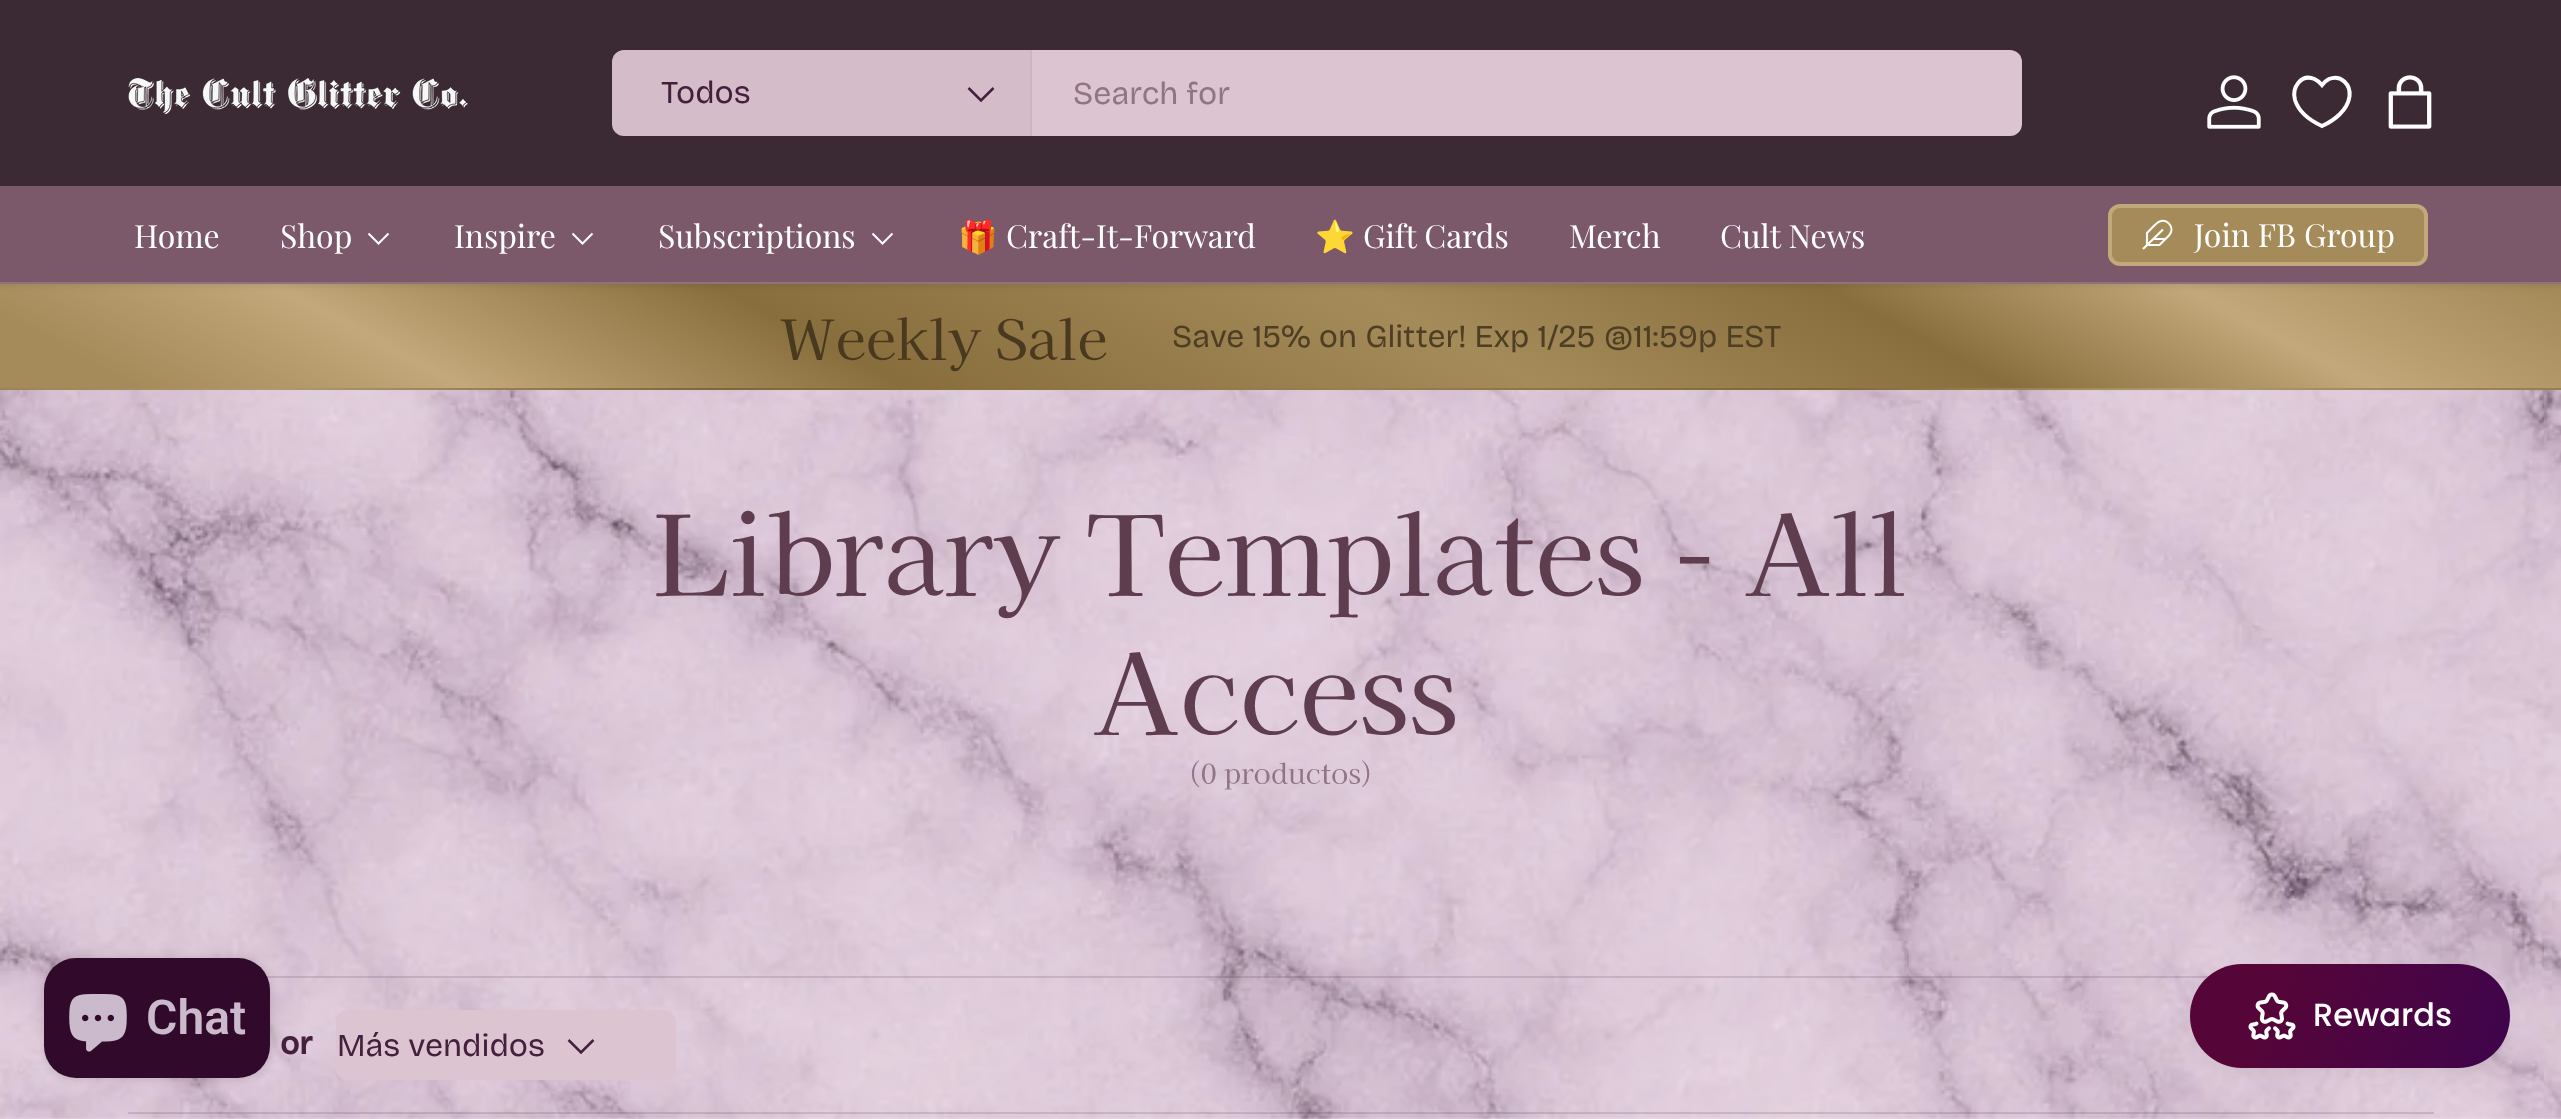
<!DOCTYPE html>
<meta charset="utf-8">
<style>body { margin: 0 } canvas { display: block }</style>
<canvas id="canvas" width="2561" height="1119"></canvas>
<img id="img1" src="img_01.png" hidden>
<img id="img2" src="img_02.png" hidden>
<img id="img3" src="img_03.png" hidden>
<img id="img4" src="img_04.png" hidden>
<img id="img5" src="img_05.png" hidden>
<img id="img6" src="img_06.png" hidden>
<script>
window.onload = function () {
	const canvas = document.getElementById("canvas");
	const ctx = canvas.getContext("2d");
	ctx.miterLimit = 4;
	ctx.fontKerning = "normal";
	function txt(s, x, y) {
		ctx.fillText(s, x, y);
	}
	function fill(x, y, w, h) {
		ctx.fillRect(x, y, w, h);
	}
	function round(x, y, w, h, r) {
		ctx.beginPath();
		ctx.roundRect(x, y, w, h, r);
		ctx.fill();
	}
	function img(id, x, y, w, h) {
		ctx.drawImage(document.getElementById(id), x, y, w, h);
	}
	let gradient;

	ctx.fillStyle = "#FFFFFF";
	fill(0, 0, 2561, 1119);
	img("img1", 0, 390, 2561, 729);
	gradient = ctx.createLinearGradient(977, 908, 1585, -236);
	gradient.addColorStop(0.05, "#A58A5A");
	gradient.addColorStop(0.17, "#C2A87A");
	gradient.addColorStop(0.33, "#896E3D");
	gradient.addColorStop(0.56, "#A58A5A");
	gradient.addColorStop(0.73, "#896E3D");
	gradient.addColorStop(0.86, "#C2A87A");
	gradient.addColorStop(0.99, "#A58A5A");
	ctx.fillStyle = gradient;
	fill(0, 284, 2561, 104);
	ctx.fillStyle = "rgba(0, 0, 0, 0.08)";
	ctx.filter = "blur(3px)";
	ctx.beginPath();
	ctx.rect(-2, -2, 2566, 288);
	ctx.fill();
	ctx.filter = "none";
	ctx.fillStyle = "#3B2A33";
	fill(0, 0, 2561, 186);
	img("img2", 128, 78, 340, 36);
	ctx.fillStyle = "#DCC5D1";
	round(612, 50, 1410, 86, 12);
	ctx.fillStyle = "rgba(69, 32, 61, 0.05)";
	fill(612, 50, 418, 86);
	ctx.fillStyle = "#CDB5C3";
	fill(1030, 50, 2, 86);
	ctx.beginPath();
	ctx.moveTo(993.5, 88);
	ctx.lineTo(981, 100.5);
	ctx.lineTo(968.5, 88);
	ctx.strokeStyle = "#45203D";
	ctx.lineWidth = 2.5;
	ctx.stroke();
	img("img3", 2207, 75, 54, 54);
	ctx.beginPath();
	ctx.moveTo(2322, 126);
	ctx.bezierCurveTo(2311, 121, 2299, 112.5, 2295, 100);
	ctx.bezierCurveTo(2291.5, 87.5, 2301, 73.5, 2314.5, 79);
	ctx.bezierCurveTo(2317.5, 80.5, 2320, 82.5, 2322, 85);
	ctx.bezierCurveTo(2324, 82.5, 2326, 80.5, 2329, 79);
	ctx.bezierCurveTo(2341, 74, 2351, 85, 2349.5, 96.5);
	ctx.bezierCurveTo(2347.5, 110.5, 2334, 120.5, 2322, 126);
	ctx.closePath();
	ctx.strokeStyle = "#FFFFFF";
	ctx.lineWidth = 4;
	ctx.stroke();
	img("img4", 2388, 75, 44, 54);
	ctx.fillStyle = "#7B596B";
	fill(0, 186, 2561, 96);
	ctx.beginPath();
	ctx.moveTo(388.5, 233.5);
	ctx.lineTo(378.5, 243.5);
	ctx.lineTo(368.5, 233.5);
	ctx.lineWidth = 2;
	ctx.stroke();
	ctx.beginPath();
	ctx.moveTo(592.5, 233.5);
	ctx.lineTo(582.5, 243.5);
	ctx.lineTo(572.5, 233.5);
	ctx.stroke();
	ctx.beginPath();
	ctx.moveTo(892.5, 233.5);
	ctx.lineTo(882.5, 243.5);
	ctx.lineTo(872.5, 233.5);
	ctx.stroke();
	ctx.save();
	ctx.beginPath();
	ctx.roundRect(2108, 204, 320, 62, 12);
	ctx.clip();
	gradient = ctx.createLinearGradient(1509, 124, 2403, 346);
	gradient.addColorStop(0.6, "#B8A37D");
	gradient.addColorStop(0.6, "#A58A5A");
	gradient.addColorStop(1, "#A58A5A");
	ctx.fillStyle = gradient;
	fill(2108, 208, 316, 54);
	ctx.restore();
	ctx.beginPath();
	ctx.roundRect(2110, 206, 316, 58, 10);
	ctx.strokeStyle = "#C2A87A";
	ctx.lineWidth = 4;
	ctx.stroke();
	ctx.beginPath();
	ctx.moveTo(2169, 235.5);
	ctx.bezierCurveTo(2175.5, 229, 2168, 218, 2159.5, 221.5);
	ctx.bezierCurveTo(2156.5, 222.5, 2150, 230, 2147, 233);
	ctx.lineTo(2147, 245);
	ctx.lineTo(2159.5, 245);
	ctx.closePath();
	ctx.moveTo(2163, 229.5);
	ctx.lineTo(2143, 249);
	ctx.strokeStyle = "#FFFFFF";
	ctx.lineWidth = 2.1;
	ctx.stroke();
	ctx.fillStyle = "#FFFFFF";
	fill(2153, 238, 12, 2);
	ctx.fillStyle = "#8F7281";
	fill(0, 282, 2561, 2);
	gradient = ctx.createLinearGradient(977, 1012, 1585, -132);
	gradient.addColorStop(0.05, "#A58A5A");
	gradient.addColorStop(0.17, "#C2A87A");
	gradient.addColorStop(0.33, "#896E3D");
	gradient.addColorStop(0.56, "#A58A5A");
	gradient.addColorStop(0.73, "#896E3D");
	gradient.addColorStop(0.86, "#C2A87A");
	gradient.addColorStop(0.99, "#A58A5A");
	ctx.fillStyle = gradient;
	fill(0, 388, 2561, 2);
	ctx.fillStyle = "rgba(78, 63, 36, 0.15)";
	fill(0, 388, 2561, 2);
	ctx.fillStyle = "rgba(69, 32, 61, 0.15)";
	fill(266, 976, 1943, 2);
	ctx.fillStyle = "rgba(0, 0, 0, 0.15)";
	ctx.filter = "blur(5px)";
	ctx.beginPath();
	ctx.roundRect(44, 958, 226, 120, 32);
	ctx.fill();
	ctx.filter = "none";
	ctx.fillStyle = "#31092B";
	round(44, 958, 226, 120, 32);
	img("img5", 69, 994, 58, 58);
	ctx.fillStyle = "rgba(69, 32, 61, 0.15)";
	fill(128, 1112, 2306, 2);
	ctx.fillStyle = "#DCC5D1";
	round(336, 1010, 340, 70, 12);
	ctx.beginPath();
	ctx.moveTo(593.5, 1040);
	ctx.lineTo(581, 1052.5);
	ctx.lineTo(568.5, 1040);
	ctx.strokeStyle = "#45203D";
	ctx.lineWidth = 2.5;
	ctx.stroke();
	ctx.fillStyle = "rgba(68, 68, 68, 0.08)";
	ctx.filter = "blur(8px)";
	ctx.beginPath();
	ctx.roundRect(2194, 976, 312, 96, 48);
	ctx.fill();
	ctx.filter = "none";
	gradient = ctx.createLinearGradient(2192, 960, 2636, 1117);
	gradient.addColorStop(0.17, "#560538");
	gradient.addColorStop(1, "#320456");
	ctx.fillStyle = gradient;
	round(2190, 964, 320, 104, 52);
	img("img6", 2248, 992, 48, 48);
	ctx.font = "32px Bricolage Grotesque";
	ctx.fillStyle = "#45203D";
	txt("Todos", 661, 103);
	ctx.fillStyle = "#917585";
	txt("Search for", 1073, 104);
	ctx.font = "32px Playfair Display";
	ctx.fillStyle = "#FFFFFF";
	txt("Home", 134, 248);
	txt("Shop", 280, 248);
	txt("Inspire", 454, 248);
	txt("Subscriptions", 658, 248);
	ctx.font = "32px Noto Color Emoji";
	txt("🎁", 958, 248);
	ctx.font = "32px Playfair Display";
	txt("Craft-It-Forward", 1006, 248);
	ctx.font = "32px Noto Color Emoji";
	txt("⭐️", 1315, 248);
	ctx.font = "32px Playfair Display";
	txt("Gift Cards", 1363, 248);
	txt("Merch", 1569, 248);
	txt("Cult News", 1720, 248);
	txt("Join FB Group", 2194, 247);
	ctx.font = "55.5px Kaisei Tokumin";
	ctx.fillStyle = "#48391F";
	txt("Weekly Sale", 780, 360);
	ctx.font = "32px Bricolage Grotesque";
	ctx.fillStyle = "#4E3F24";
	txt("Save 15% on Glitter! Exp 1/25 @11:59p EST", 1172, 347);
	ctx.font = "600 48px Roboto";
	ctx.fillStyle = "#CBB9CC";
	txt("Chat", 146, 1034);
	ctx.font = "111.1px Kaisei Tokumin";
	ctx.fillStyle = "#5E3D4E";
	txt("Library Templates - All", 654, 596);
	txt("Access", 1093, 735);
	ctx.font = "28px Kaisei Tokumin";
	ctx.fillStyle = "#917585";
	txt("(0 productos)", 1188, 784);
	ctx.font = "bold 32px Bricolage Grotesque";
	ctx.fillStyle = "#45203D";
	txt("or", 280, 1054);
	ctx.font = "32px Bricolage Grotesque";
	txt("Más vendidos", 337, 1056);
	ctx.font = "500 32px Poppins";
	ctx.fillStyle = "#FFFFFF";
	txt("Rewards", 2313, 1026);
};
</script>
